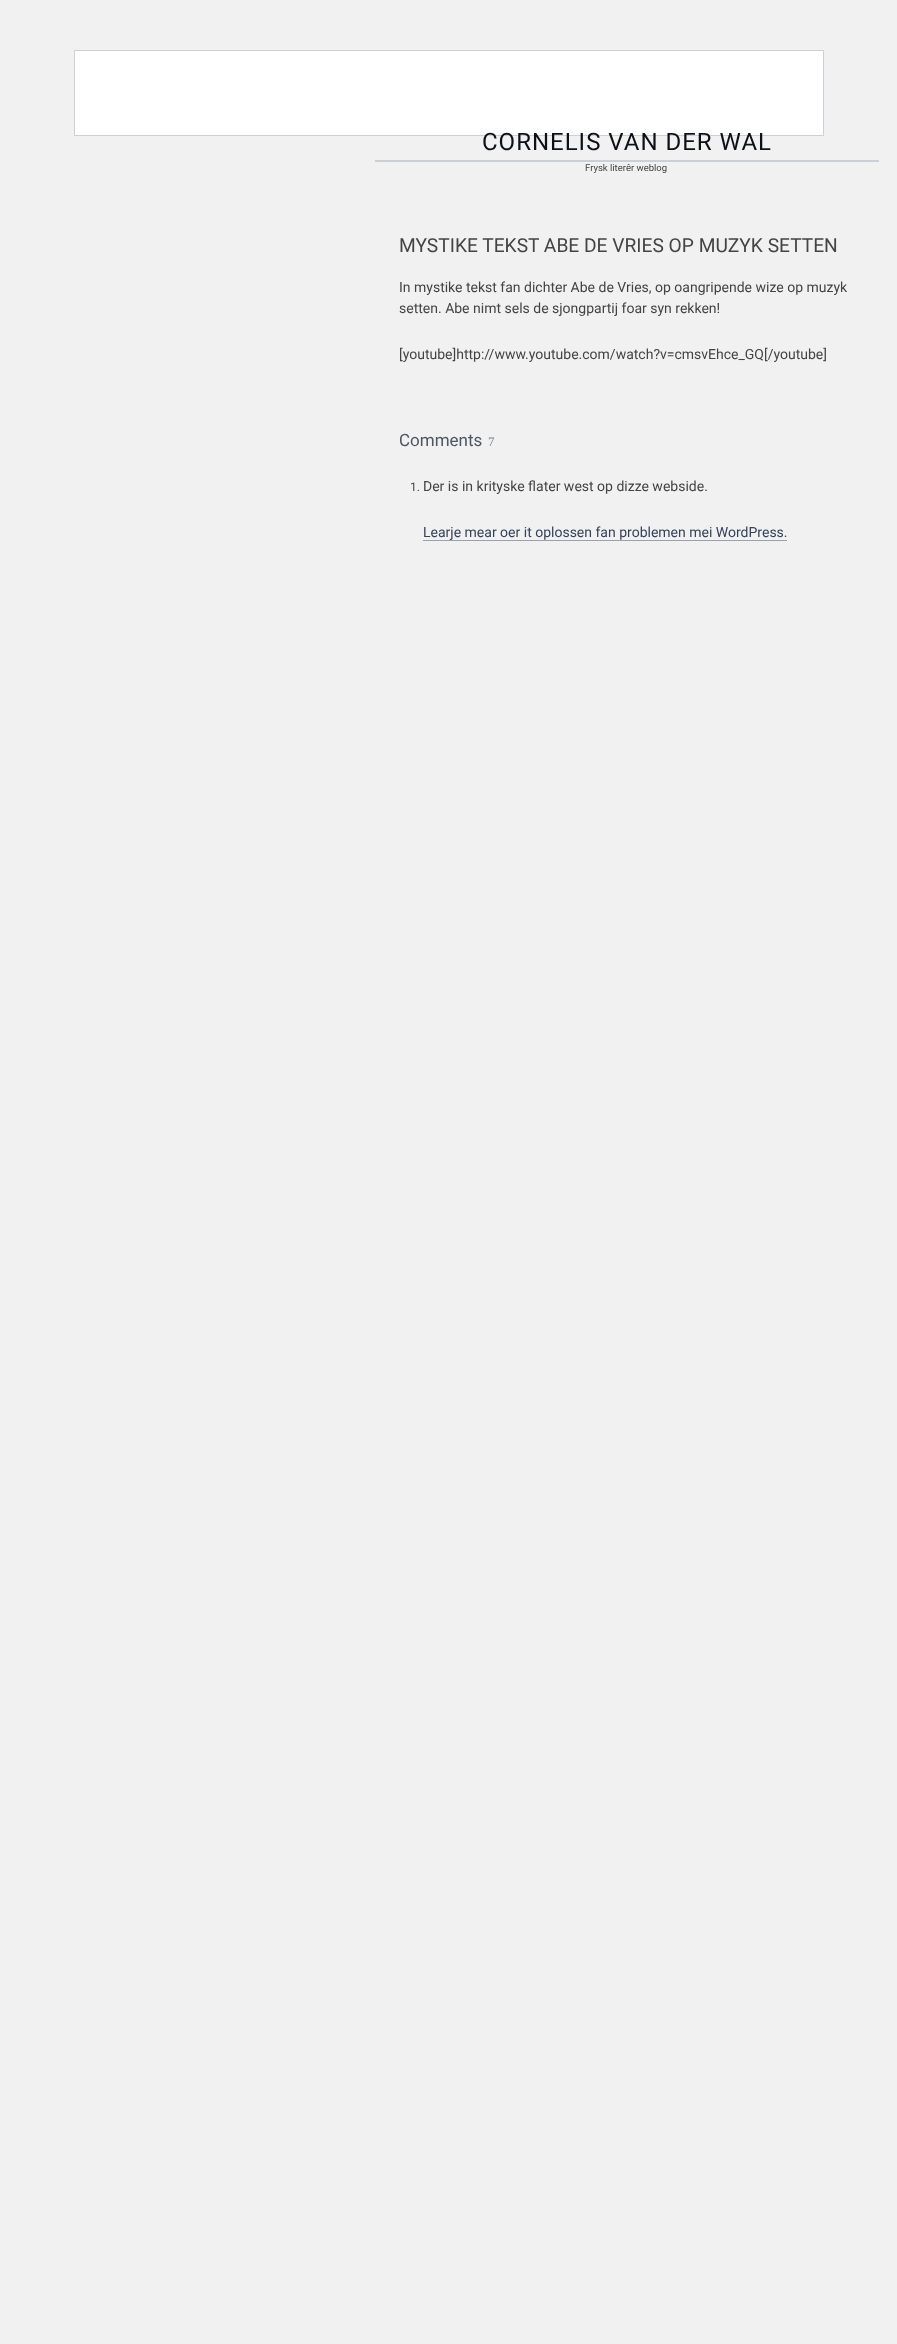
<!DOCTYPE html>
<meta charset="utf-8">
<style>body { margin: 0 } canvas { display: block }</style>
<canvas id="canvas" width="897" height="2344"></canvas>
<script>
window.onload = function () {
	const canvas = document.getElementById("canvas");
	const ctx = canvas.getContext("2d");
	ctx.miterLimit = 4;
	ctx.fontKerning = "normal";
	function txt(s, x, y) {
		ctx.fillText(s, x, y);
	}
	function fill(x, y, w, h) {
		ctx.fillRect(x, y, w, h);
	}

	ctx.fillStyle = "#F1F1F1";
	fill(0, 0, 897, 2344);
	ctx.fillStyle = "#FFFFFF";
	ctx.beginPath();
	ctx.rect(74.5, 50.5, 749, 85);
	ctx.fill();
	ctx.strokeStyle = "#CCD0D4";
	ctx.stroke();
	ctx.fillStyle = "#CCD0D6";
	fill(375, 160, 504, 2);
	ctx.fillStyle = "#9AA1AE";
	fill(423, 540, 364, 1);
	ctx.letterSpacing = "1px";
	ctx.font = "24px Roboto";
	ctx.fillStyle = "#0D1117";
	txt("CORNELIS VAN DER WAL", 482, 150);
	ctx.letterSpacing = "0px";
	ctx.font = "9.5px Roboto";
	ctx.fillStyle = "#444444";
	txt("Frysk literêr weblog", 585, 171);
	ctx.font = "19.2px Roboto";
	txt("MYSTIKE TEKST ABE DE VRIES OP MUZYK SETTEN", 399, 252);
	ctx.font = "14px Roboto";
	txt("In mystike tekst fan dichter Abe de Vries, op oangripende wize op muzyk", 399, 292);
	txt("setten. Abe nimt sels de sjongpartij foar syn rekken!", 399, 313);
	txt("[youtube]http://www.youtube.com/watch?v=cmsvEhce_GQ[/youtube]", 399, 359);
	ctx.font = "17px Roboto";
	ctx.fillStyle = "#4D5663";
	txt("Comments", 399, 446);
	ctx.font = "13px Liberation Serif";
	ctx.fillStyle = "#7A818A";
	txt("7", 488, 446);
	ctx.font = "12px Roboto";
	ctx.fillStyle = "#444444";
	txt("1.", 410, 491);
	ctx.font = "14px Roboto";
	txt("Der is in krityske flater west op dizze webside.", 423, 491);
	ctx.fillStyle = "#34425B";
	txt("Learje mear oer it oplossen fan problemen mei WordPress.", 423, 537);
};
</script>
